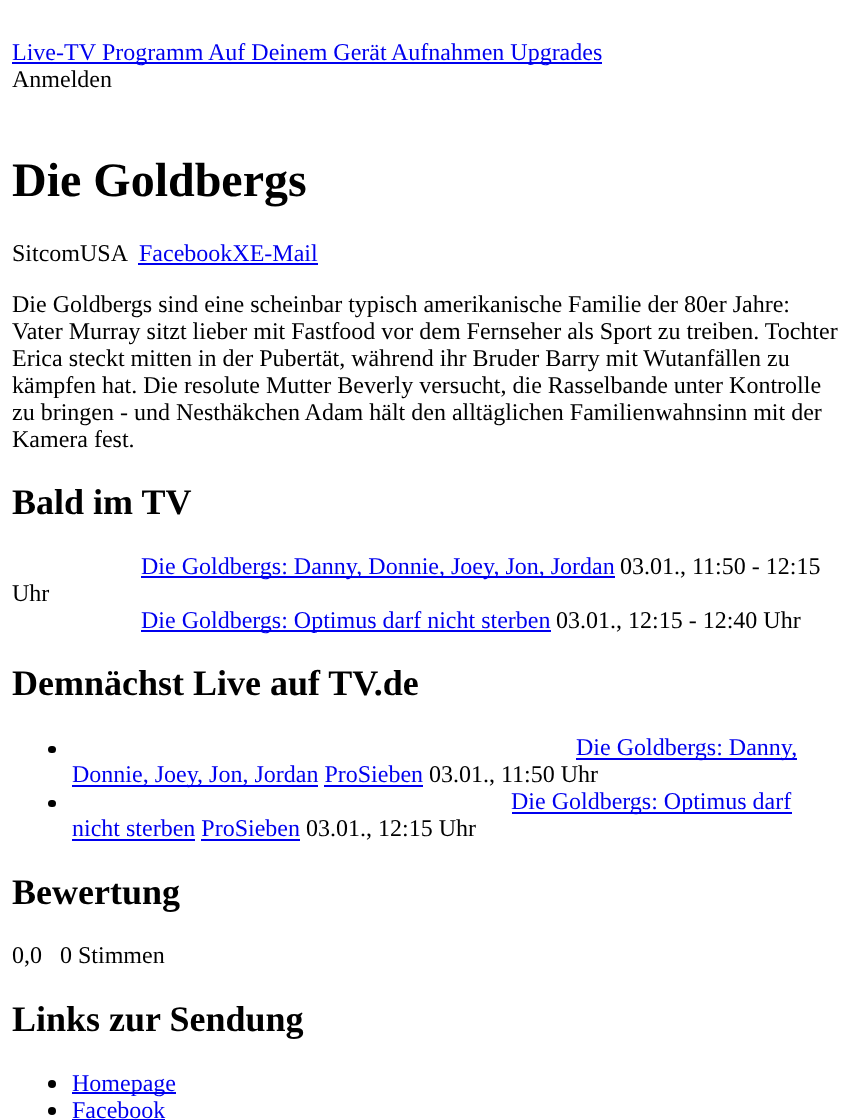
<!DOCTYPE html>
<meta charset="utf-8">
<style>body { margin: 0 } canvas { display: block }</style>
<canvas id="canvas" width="856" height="1120"></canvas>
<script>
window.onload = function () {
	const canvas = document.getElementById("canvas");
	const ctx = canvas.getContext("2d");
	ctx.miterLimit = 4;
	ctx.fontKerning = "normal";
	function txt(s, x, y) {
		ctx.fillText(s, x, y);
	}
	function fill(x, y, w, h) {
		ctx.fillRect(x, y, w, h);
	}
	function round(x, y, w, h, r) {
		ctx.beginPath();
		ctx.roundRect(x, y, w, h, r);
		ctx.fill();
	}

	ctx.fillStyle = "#FFFFFF";
	fill(0, 0, 856, 1120);
	ctx.fillStyle = "#0000EE";
	fill(12, 62, 590, 2);
	fill(138, 263, 180, 2);
	fill(141, 576, 474, 2);
	fill(141, 630, 410, 2);
	ctx.fillStyle = "#000000";
	round(48, 746, 8, 7, 3.5);
	ctx.fillStyle = "#0000EE";
	fill(576, 758, 221, 2);
	fill(72, 785, 246, 2);
	fill(324, 785, 99, 2);
	ctx.fillStyle = "#000000";
	round(48, 800, 8, 7, 3.5);
	ctx.fillStyle = "#0000EE";
	fill(512, 812, 280, 2);
	fill(72, 839, 123, 2);
	fill(201, 839, 99, 2);
	ctx.fillStyle = "#000000";
	ctx.beginPath();
	ctx.arc(52, 1084, 4, 0, Math.PI * 2);
	ctx.fill();
	ctx.fillStyle = "#0000EE";
	fill(72, 1092, 104, 2);
	ctx.fillStyle = "#000000";
	ctx.beginPath();
	ctx.arc(52, 1111, 4, 0, Math.PI * 2);
	ctx.fill();
	ctx.fillStyle = "#0000EE";
	fill(72, 1119, 93, 1);
	ctx.font = "24px Liberation Serif";
	txt("Live-TV", 12, 60);
	txt("Programm", 102, 60);
	txt("Auf Deinem Gerät", 208, 60);
	txt("Aufnahmen Upgrades", 391, 60);
	ctx.fillStyle = "#000000";
	txt("Anmelden", 12, 87);
	ctx.font = "bold 48px Liberation Serif";
	txt("Die Goldbergs", 12, 196);
	ctx.font = "24px Liberation Serif";
	txt("SitcomUSA", 12, 261);
	ctx.fillStyle = "#0000EE";
	txt("FacebookXE-Mail", 139, 261);
	ctx.fillStyle = "#000000";
	txt("Die Goldbergs sind eine scheinbar typisch amerikanische Familie der 80er Jahre:", 12, 312);
	txt("Vater Murray sitzt lieber mit Fastfood vor dem Fernseher als Sport zu treiben. Tochter", 12, 339);
	txt("Erica steckt mitten in der Pubertät, während ihr Bruder Barry mit Wutanfällen zu", 12, 366);
	txt("kämpfen hat. Die resolute Mutter Beverly versucht, die Rasselbande unter Kontrolle", 12, 393);
	txt("zu bringen - und Nesthäkchen Adam hält den alltäglichen Familienwahnsinn mit der", 12, 420);
	txt("Kamera fest.", 12, 447);
	ctx.font = "bold 36px Liberation Serif";
	txt("Bald im TV", 12, 514);
	ctx.font = "24px Liberation Serif";
	ctx.fillStyle = "#0000EE";
	txt("Die Goldbergs: Danny, Donnie, Joey, Jon, Jordan", 141, 574);
	ctx.fillStyle = "#000000";
	txt("03.01., 11:50 - 12:15", 620, 574);
	txt("Uhr", 12, 601);
	ctx.fillStyle = "#0000EE";
	txt("Die Goldbergs: Optimus darf nicht sterben", 141, 628);
	ctx.fillStyle = "#000000";
	txt("03.01., 12:15 - 12:40 Uhr", 556, 628);
	ctx.font = "bold 36px Liberation Serif";
	txt("Demnächst Live auf TV.de", 12, 695);
	ctx.font = "24px Liberation Serif";
	ctx.fillStyle = "#0000EE";
	txt("Die Goldbergs: Danny,", 576, 755);
	txt("Donnie, Joey, Jon, Jordan ProSieben", 72, 782);
	ctx.fillStyle = "#000000";
	txt("03.01., 11:50 Uhr", 429, 782);
	ctx.fillStyle = "#0000EE";
	txt("Die Goldbergs: Optimus darf", 511, 809);
	txt("nicht sterben ProSieben", 72, 836);
	ctx.fillStyle = "#000000";
	txt("03.01., 12:15 Uhr", 306, 836);
	ctx.font = "bold 36px Liberation Serif";
	txt("Bewertung", 12, 904);
	ctx.font = "24px Liberation Serif";
	txt("0,0", 12, 963);
	txt("0 Stimmen", 60, 963);
	ctx.font = "bold 36px Liberation Serif";
	txt("Links zur Sendung", 12, 1031);
	ctx.font = "24px Liberation Serif";
	ctx.fillStyle = "#0000EE";
	txt("Homepage", 72, 1091);
	txt("Facebook", 72, 1118);
};
</script>
